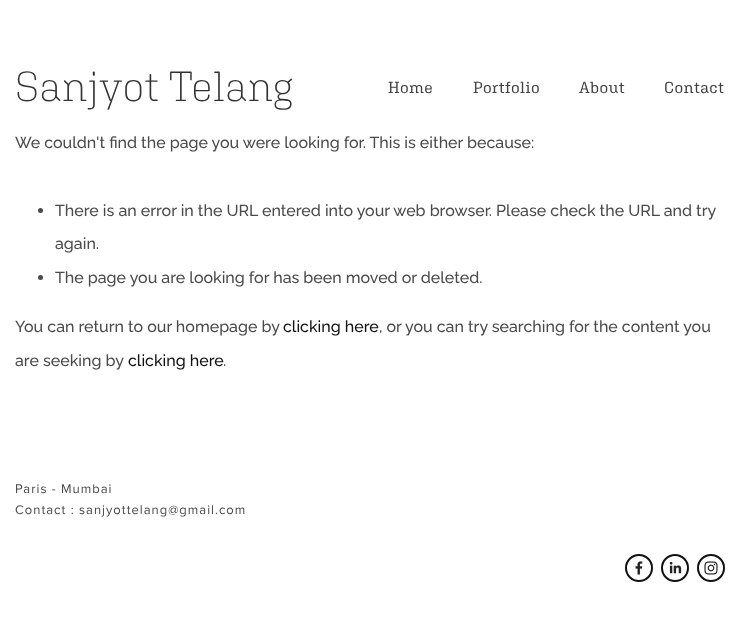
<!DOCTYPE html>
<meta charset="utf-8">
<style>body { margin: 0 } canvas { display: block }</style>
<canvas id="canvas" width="740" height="626"></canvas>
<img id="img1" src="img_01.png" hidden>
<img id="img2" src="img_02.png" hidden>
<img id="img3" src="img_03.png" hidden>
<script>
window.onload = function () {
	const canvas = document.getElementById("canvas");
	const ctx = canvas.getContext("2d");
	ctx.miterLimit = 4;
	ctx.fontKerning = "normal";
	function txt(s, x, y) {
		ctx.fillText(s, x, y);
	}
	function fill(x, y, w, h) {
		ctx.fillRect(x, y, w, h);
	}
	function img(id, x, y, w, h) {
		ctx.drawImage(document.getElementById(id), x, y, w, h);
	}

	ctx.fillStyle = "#FFFFFF";
	fill(0, 0, 740, 626);
	ctx.fillStyle = "#4A4A4A";
	ctx.beginPath();
	ctx.arc(40.5, 210.5, 2.5, 0, Math.PI * 2);
	ctx.fill();
	ctx.beginPath();
	ctx.arc(40.5, 277.5, 2.5, 0, Math.PI * 2);
	ctx.fill();
	ctx.beginPath();
	ctx.arc(639, 568, 13, 0, Math.PI * 2);
	ctx.strokeStyle = "#111111";
	ctx.lineWidth = 2;
	ctx.stroke();
	img("img1", 635, 561, 8, 14);
	ctx.beginPath();
	ctx.arc(675, 568, 13, 0, Math.PI * 2);
	ctx.stroke();
	img("img2", 669, 561, 13, 13);
	ctx.beginPath();
	ctx.arc(711, 568, 13, 0, Math.PI * 2);
	ctx.stroke();
	img("img3", 704, 561, 14, 14);
	ctx.letterSpacing = "0.6px";
	ctx.font = "200 42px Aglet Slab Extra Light";
	ctx.fillStyle = "#333333";
	txt("Sanjyot Telang", 15, 101);
	ctx.letterSpacing = "0.5px";
	ctx.font = "16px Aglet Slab";
	ctx.fillStyle = "#404040";
	txt("Home", 388, 93);
	txt("Portfolio", 473, 93);
	txt("About", 579, 93);
	txt("Contact", 664, 93);
	ctx.letterSpacing = "0px";
	ctx.font = "500 16px Raleway";
	ctx.fillStyle = "#4A4A4A";
	txt("We couldn't find the page you were looking for. This is either because:", 15, 148);
	txt("There is an error in the URL entered into your web browser. Please check the URL and try", 55, 216);
	txt("again.", 55, 249);
	txt("The page you are looking for has been moved or deleted.", 55, 283);
	txt("You can return to our homepage by", 15, 332);
	ctx.fillStyle = "#111111";
	txt("clicking here", 283, 332);
	ctx.fillStyle = "#4A4A4A";
	txt(", or you can try searching for the content you", 379, 332);
	txt("are seeking by", 15, 366);
	ctx.fillStyle = "#111111";
	txt("clicking here", 128, 366);
	ctx.fillStyle = "#4A4A4A";
	txt(".", 223, 366);
	ctx.letterSpacing = "1px";
	ctx.font = "13px Proxima Nova";
	txt("Paris - Mumbai", 15, 493);
	txt("Contact : sanjyottelang@gmail.com", 15, 514);
};
</script>
